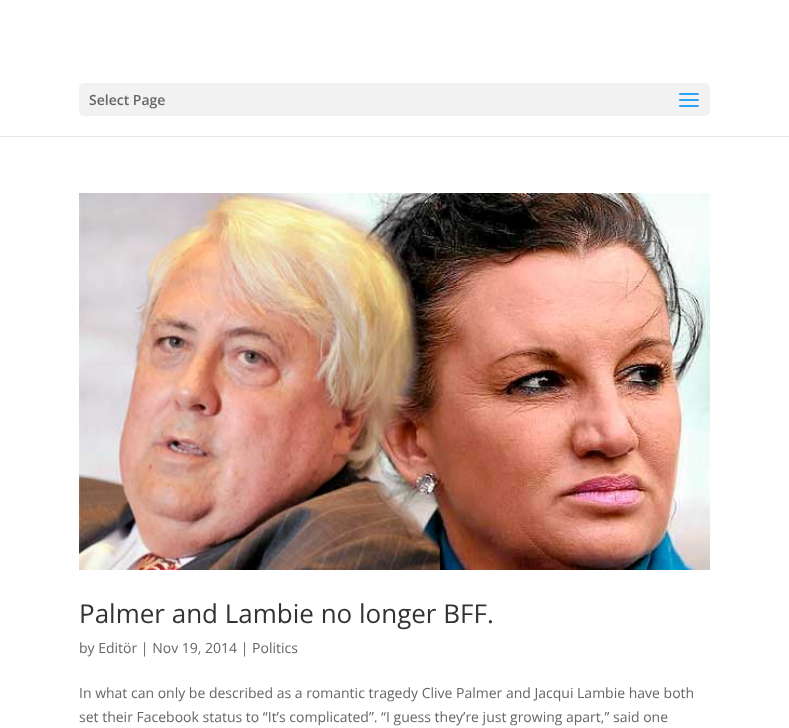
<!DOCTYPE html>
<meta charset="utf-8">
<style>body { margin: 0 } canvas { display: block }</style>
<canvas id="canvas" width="789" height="728"></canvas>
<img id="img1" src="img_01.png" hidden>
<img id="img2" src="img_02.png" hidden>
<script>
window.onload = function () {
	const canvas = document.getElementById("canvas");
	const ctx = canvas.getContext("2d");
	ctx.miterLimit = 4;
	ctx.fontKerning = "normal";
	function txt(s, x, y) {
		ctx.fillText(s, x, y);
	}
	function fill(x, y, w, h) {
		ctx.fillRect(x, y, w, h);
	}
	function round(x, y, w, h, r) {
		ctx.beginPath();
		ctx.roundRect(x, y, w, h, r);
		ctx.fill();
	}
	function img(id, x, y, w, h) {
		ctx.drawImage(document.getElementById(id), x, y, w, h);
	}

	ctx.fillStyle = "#FFFFFF";
	fill(0, 0, 789, 728);
	ctx.fillStyle = "#E6E6E6";
	fill(0, 136, 789, 1);
	ctx.fillStyle = "#F2F2F2";
	round(79, 83, 631, 33, 5);
	img("img1", 679, 93, 20, 14);
	img("img2", 79, 193, 631, 377);
	ctx.font = "600 14px Open Sans";
	ctx.fillStyle = "#666666";
	txt("Select Page", 89, 105);
	ctx.font = "26px Open Sans";
	ctx.fillStyle = "#333333";
	txt("Palmer and Lambie no longer BFF.", 79, 623);
	ctx.font = "14px Open Sans";
	ctx.fillStyle = "#666666";
	txt("by Editör | Nov 19, 2014 | Politics", 79, 653);
	txt("In what can only be described as a romantic tragedy Clive Palmer and Jacqui Lambie have both", 79, 698);
	txt("set their Facebook status to “It’s complicated”. “I guess they’re just growing apart,” said one", 79, 722);
};
</script>
